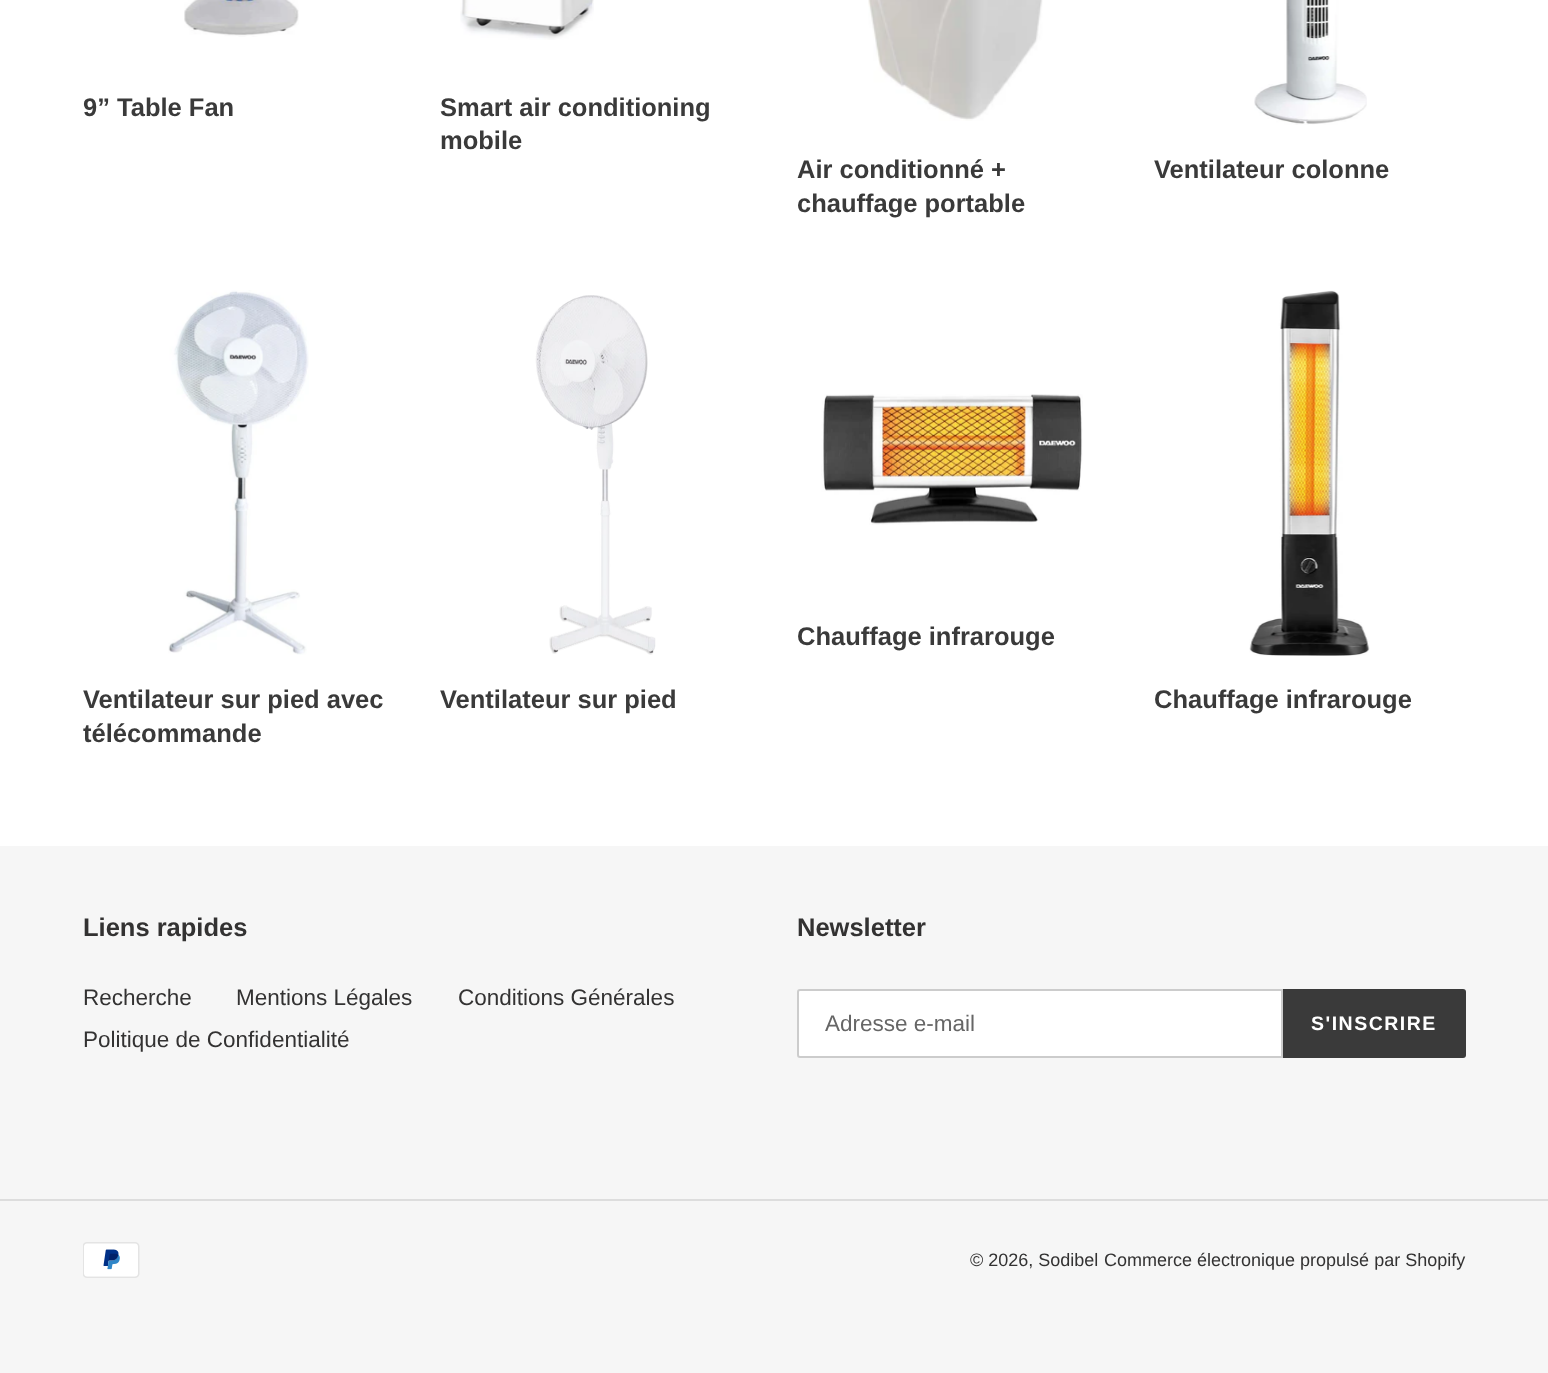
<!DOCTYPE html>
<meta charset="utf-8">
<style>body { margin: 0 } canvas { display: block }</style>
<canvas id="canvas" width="1548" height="1373"></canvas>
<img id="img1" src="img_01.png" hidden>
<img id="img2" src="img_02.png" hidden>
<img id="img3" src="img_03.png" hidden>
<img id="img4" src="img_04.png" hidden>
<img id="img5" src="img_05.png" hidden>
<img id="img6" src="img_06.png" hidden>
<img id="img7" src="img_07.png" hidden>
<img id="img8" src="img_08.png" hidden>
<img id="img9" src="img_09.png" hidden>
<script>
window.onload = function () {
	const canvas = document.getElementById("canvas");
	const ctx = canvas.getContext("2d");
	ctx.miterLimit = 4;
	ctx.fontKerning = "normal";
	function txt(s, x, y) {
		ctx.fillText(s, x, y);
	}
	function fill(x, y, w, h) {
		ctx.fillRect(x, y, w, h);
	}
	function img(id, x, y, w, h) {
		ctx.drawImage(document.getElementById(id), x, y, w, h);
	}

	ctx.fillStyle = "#FFFFFF";
	fill(0, 0, 1548, 1373);
	img("img1", 184, 0, 115, 37);
	img("img2", 460, 0, 134, 40);
	img("img3", 868, 0, 175, 121);
	img("img4", 1254, 0, 113, 125);
	img("img5", 821, 394, 262, 131);
	img("img6", 168, 290, 141, 365);
	img("img7", 535, 295, 121, 360);
	img("img8", 1249, 290, 121, 366);
	ctx.fillStyle = "#F6F6F6";
	fill(0, 846, 1548, 527);
	ctx.fillStyle = "#FFFFFF";
	ctx.beginPath();
	ctx.roundRect(798, 990, 484, 67, [2, 0, 0, 2]);
	ctx.fill();
	ctx.strokeStyle = "#CCCCCC";
	ctx.lineWidth = 2;
	ctx.stroke();
	ctx.fillStyle = "#3A3A3A";
	ctx.beginPath();
	ctx.roundRect(1283, 989, 183, 69, [0, 3, 3, 0]);
	ctx.fill();
	ctx.fillStyle = "#DDDDDD";
	fill(0, 1199, 1548, 2);
	img("img9", 83, 1242, 57, 36);
	ctx.font = "bold 25.5px Liberation Sans";
	ctx.fillStyle = "#3A3A3A";
	txt("9” Table Fan", 83, 116);
	txt("Smart air conditioning", 440, 116);
	txt("mobile", 440, 149);
	txt("Air conditionné +", 797, 178);
	txt("chauffage portable", 797, 212);
	txt("Ventilateur colonne", 1154, 178);
	txt("Chauffage infrarouge", 797, 645);
	txt("Ventilateur sur pied avec", 83, 708);
	txt("télécommande", 83, 742);
	txt("Ventilateur sur pied", 440, 708);
	txt("Chauffage infrarouge", 1154, 708);
	ctx.fillStyle = "#333232";
	txt("Liens rapides", 83, 936);
	ctx.font = "22.5px Liberation Sans";
	txt("Recherche", 83, 1005);
	txt("Mentions Légales", 236, 1005);
	txt("Conditions Générales", 458, 1005);
	txt("Politique de Confidentialité", 83, 1047);
	ctx.font = "bold 25.5px Liberation Sans";
	txt("Newsletter", 797, 936);
	ctx.font = "22.5px Liberation Sans";
	ctx.fillStyle = "#666666";
	txt("Adresse e-mail", 825, 1031);
	ctx.letterSpacing = "1.5px";
	ctx.font = "bold 19.5px Liberation Sans";
	ctx.fillStyle = "#FFFFFF";
	txt("S'INSCRIRE", 1311, 1030);
	ctx.letterSpacing = "0px";
	ctx.font = "18px Liberation Sans";
	ctx.fillStyle = "#333232";
	txt("© 2026, Sodibel", 970, 1266);
	txt("Commerce électronique propulsé par Shopify", 1104, 1266);
};
</script>
